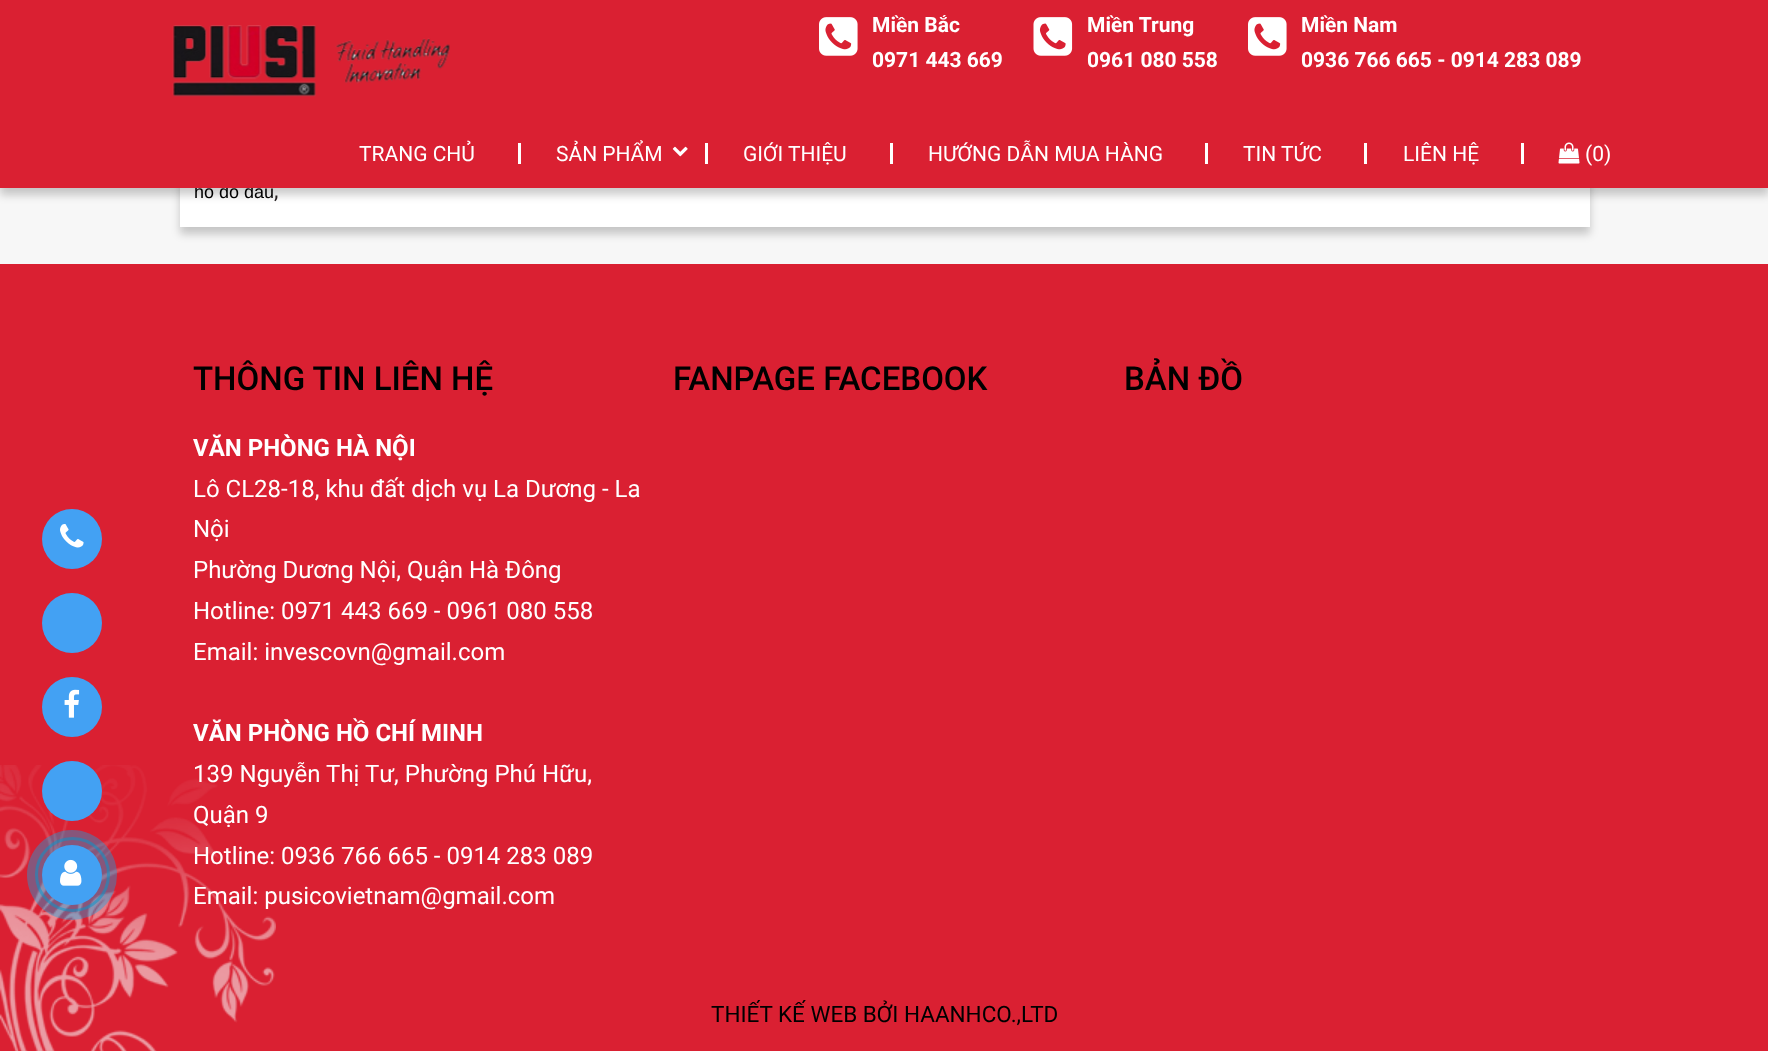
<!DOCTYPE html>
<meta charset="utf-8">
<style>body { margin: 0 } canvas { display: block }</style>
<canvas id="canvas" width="1768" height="1051"></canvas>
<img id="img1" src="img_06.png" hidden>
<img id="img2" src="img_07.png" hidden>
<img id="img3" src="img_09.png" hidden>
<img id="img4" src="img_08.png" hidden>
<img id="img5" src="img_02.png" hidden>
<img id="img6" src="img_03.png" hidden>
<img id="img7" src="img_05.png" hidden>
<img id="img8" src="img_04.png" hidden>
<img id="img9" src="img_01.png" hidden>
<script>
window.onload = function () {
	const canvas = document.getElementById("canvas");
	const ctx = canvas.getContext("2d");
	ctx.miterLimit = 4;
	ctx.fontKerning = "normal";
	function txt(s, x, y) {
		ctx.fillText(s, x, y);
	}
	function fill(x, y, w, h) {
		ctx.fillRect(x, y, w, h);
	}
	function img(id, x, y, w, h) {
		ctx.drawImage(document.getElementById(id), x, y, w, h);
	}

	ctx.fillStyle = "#F7F7F7";
	fill(0, 0, 1768, 1051);
	ctx.fillStyle = "rgba(0, 0, 0, 0.2)";
	ctx.filter = "blur(4px)";
	ctx.beginPath();
	ctx.rect(180, -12, 1410, 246);
	ctx.fill();
	ctx.filter = "none";
	ctx.fillStyle = "#FFFFFF";
	fill(180, 188, 1410, 39);
	ctx.fillStyle = "rgba(0, 0, 0, 0.2)";
	ctx.filter = "blur(4px)";
	ctx.beginPath();
	ctx.rect(0, 8, 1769, 187);
	ctx.fill();
	ctx.filter = "none";
	ctx.fillStyle = "#DA2032";
	fill(0, 264, 1768, 787);
	ctx.fillStyle = "#43A1F3";
	ctx.beginPath();
	ctx.arc(72, 539, 30, 0, Math.PI * 2);
	ctx.fill();
	img("img1", 60, 524, 24, 24);
	ctx.beginPath();
	ctx.arc(72, 623, 30, 0, Math.PI * 2);
	ctx.fill();
	ctx.beginPath();
	ctx.arc(72, 707, 30, 0, Math.PI * 2);
	ctx.fill();
	img("img2", 64, 689, 16, 29);
	img("img3", 0, 765, 276, 286);
	ctx.beginPath();
	ctx.arc(72, 791, 30, 0, Math.PI * 2);
	ctx.fill();
	ctx.beginPath();
	ctx.arc(72.5, 874.5, 36, 0, Math.PI * 2);
	ctx.strokeStyle = "rgba(0, 137, 185, 0.5)";
	ctx.lineWidth = 3;
	ctx.stroke();
	ctx.fillStyle = "rgba(0, 175, 242, 0.38)";
	ctx.beginPath();
	ctx.arc(72, 875, 45, 0, Math.PI * 2);
	ctx.fill();
	ctx.fillStyle = "#43A1F3";
	ctx.beginPath();
	ctx.arc(72, 875, 30, 0, Math.PI * 2);
	ctx.fill();
	img("img4", 60, 859, 22, 27);
	ctx.font = "18px Liberation Sans";
	ctx.fillStyle = "#000000";
	txt("hồ đo dầu", 194, 198);
	ctx.fillStyle = "#DA2032";
	fill(0, 0, 1768, 188);
	img("img5", 819, 17, 39, 39);
	img("img6", 1033, 17, 40, 39);
	img("img5", 1248, 17, 39, 39);
	ctx.font = "bold 21px Roboto";
	ctx.fillStyle = "#FFFFFF";
	txt("0971 443 669", 872, 67);
	txt("Miền Bắc", 872, 32);
	txt("0961 080 558", 1087, 67);
	txt("Miền Trung", 1087, 32);
	txt("0936 766 665 - 0914 283 089", 1301, 67);
	txt("Miền Nam", 1301, 32);
	ctx.font = "21px Roboto";
	txt("(0)", 1585, 161);
	img("img7", 1558, 142, 22, 22);
	fill(1521, 143, 3, 21);
	txt("LIÊN HỆ", 1403, 161);
	fill(1364, 143, 3, 21);
	txt("TIN TỨC", 1243, 161);
	fill(1205, 143, 3, 21);
	txt("HƯỚNG DẪN MUA HÀNG", 928, 161);
	fill(890, 143, 3, 21);
	txt("GIỚI THIỆU", 743, 161);
	fill(705, 143, 3, 21);
	img("img8", 672, 146, 16, 11);
	txt("SẢN PHẨM", 556, 161);
	fill(518, 143, 3, 21);
	txt("TRANG CHỦ", 359, 161);
	img("img9", 172, 25, 278, 72);
	ctx.font = "22.5px Roboto";
	ctx.fillStyle = "#231F20";
	txt(",", 274, 198);
	ctx.font = "500 33px Roboto";
	ctx.fillStyle = "#000000";
	txt("THÔNG TIN LIÊN HỆ", 193, 390);
	ctx.font = "bold 24px Roboto";
	ctx.fillStyle = "#FFFFFF";
	txt("VĂN PHÒNG HÀ NỘI", 193, 456);
	ctx.font = "24px Roboto";
	txt("Lô CL28-18, khu đất dịch vụ La Dương - La", 193, 497);
	txt("Nội", 193, 537);
	txt("Phường Dương Nội, Quận Hà Đông", 193, 578);
	txt("Hotline: 0971 443 669 - 0961 080 558", 193, 619);
	txt("Email: invescovn@gmail.com", 193, 660);
	ctx.font = "bold 24px Roboto";
	txt("VĂN PHÒNG HỒ CHÍ MINH", 193, 741);
	ctx.font = "24px Roboto";
	txt("139 Nguyễn Thị Tư, Phường Phú Hữu,", 193, 782);
	txt("Quận 9", 193, 823);
	txt("Hotline: 0936 766 665 - 0914 283 089", 193, 864);
	txt("Email: pusicovietnam@gmail.com", 193, 904);
	ctx.font = "500 33px Roboto";
	ctx.fillStyle = "#000000";
	txt("FANPAGE FACEBOOK", 673, 390);
	txt("BẢN ĐỒ", 1124, 390);
	ctx.font = "22.5px Roboto";
	txt("THIẾT KẾ WEB BỞI HAANHCO.,LTD", 711, 1022);
};
</script>
